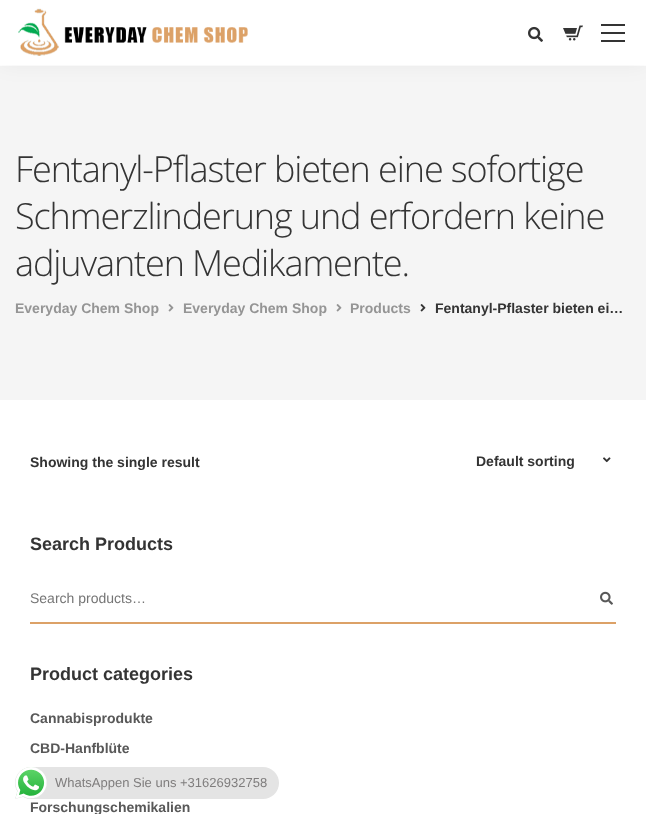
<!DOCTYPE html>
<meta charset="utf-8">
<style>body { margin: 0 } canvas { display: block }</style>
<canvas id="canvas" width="646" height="814"></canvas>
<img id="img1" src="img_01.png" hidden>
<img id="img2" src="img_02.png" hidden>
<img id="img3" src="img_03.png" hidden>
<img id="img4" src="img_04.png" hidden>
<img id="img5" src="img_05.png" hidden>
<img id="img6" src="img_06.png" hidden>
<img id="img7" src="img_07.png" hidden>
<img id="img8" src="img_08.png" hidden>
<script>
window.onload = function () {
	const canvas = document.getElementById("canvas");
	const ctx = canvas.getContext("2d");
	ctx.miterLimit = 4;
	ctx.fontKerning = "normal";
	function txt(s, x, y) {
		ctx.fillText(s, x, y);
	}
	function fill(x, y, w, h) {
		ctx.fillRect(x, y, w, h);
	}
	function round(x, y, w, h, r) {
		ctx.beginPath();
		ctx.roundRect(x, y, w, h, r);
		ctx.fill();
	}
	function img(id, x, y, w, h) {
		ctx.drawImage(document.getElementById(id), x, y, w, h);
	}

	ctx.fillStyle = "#FFFFFF";
	fill(0, 0, 646, 814);
	ctx.fillStyle = "#F5F5F5";
	fill(0, 66, 646, 334);
	ctx.fillStyle = "rgba(0, 0, 0, 0.05)";
	ctx.filter = "blur(10px)";
	ctx.beginPath();
	ctx.rect(0, 0, 646, 65);
	ctx.fill();
	ctx.filter = "none";
	ctx.fillStyle = "#FFFFFF";
	fill(0, 0, 646, 65);
	img("img1", 18, 8, 230, 48);
	img("img2", 528, 26, 15, 16);
	img("img3", 563, 25, 20, 16);
	ctx.fillStyle = "#343434";
	fill(601, 40, 24, 2);
	fill(601, 24, 24, 2);
	fill(601, 32, 24, 2);
	img("img4", 168, 304, 6, 8);
	img("img4", 336, 304, 6, 8);
	img("img5", 420, 304, 6, 8);
	img("img6", 603, 457, 8, 6);
	ctx.fillStyle = "#DCA167";
	fill(30, 622, 586, 2);
	img("img7", 600, 591, 13, 14);
	ctx.fillStyle = "#E4E4E4";
	round(15, 767, 264, 32, 16);
	img("img8", 15, 767, 32, 32);
	ctx.letterSpacing = "-1.1px";
	ctx.font = "300 36px Open Sans";
	ctx.fillStyle = "#343434";
	txt("Fentanyl-Pflaster bieten eine sofortige", 15, 182);
	txt("Schmerzlinderung und erfordern keine", 15, 229);
	txt("adjuvanten Medikamente.", 15, 276);
	ctx.letterSpacing = "0px";
	ctx.font = "bold 14px Liberation Sans";
	ctx.fillStyle = "#959595";
	txt("Everyday Chem Shop", 15, 313);
	txt("Everyday Chem Shop", 183, 313);
	txt("Products", 350, 313);
	ctx.fillStyle = "#343434";
	txt("Fentanyl-Pflaster bieten ei…", 435, 313);
	txt("Showing the single result", 30, 467);
	txt("Default sorting", 476, 466);
	ctx.font = "bold 18px Liberation Sans";
	txt("Search Products", 30, 550);
	ctx.font = "14px Liberation Sans";
	ctx.fillStyle = "#757575";
	txt("Search products…", 30, 603);
	ctx.font = "bold 18px Liberation Sans";
	ctx.fillStyle = "#343434";
	txt("Product categories", 30, 680);
	ctx.font = "bold 14px Liberation Sans";
	ctx.fillStyle = "#585858";
	txt("Cannabisprodukte", 30, 723);
	txt("CBD-Hanfblüte", 30, 753);
	txt("Forschungschemikalien", 30, 812);
	ctx.font = "13px Liberation Sans";
	ctx.fillStyle = "#7F7D7D";
	txt("WhatsAppen Sie uns +31626932758", 55, 787);
};
</script>
